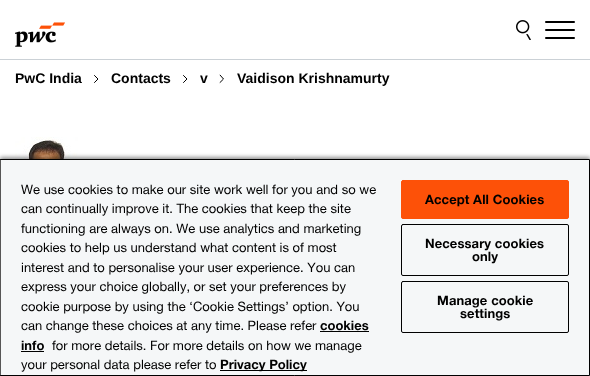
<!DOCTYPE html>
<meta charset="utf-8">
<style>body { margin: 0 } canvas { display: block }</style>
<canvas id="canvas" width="590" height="376"></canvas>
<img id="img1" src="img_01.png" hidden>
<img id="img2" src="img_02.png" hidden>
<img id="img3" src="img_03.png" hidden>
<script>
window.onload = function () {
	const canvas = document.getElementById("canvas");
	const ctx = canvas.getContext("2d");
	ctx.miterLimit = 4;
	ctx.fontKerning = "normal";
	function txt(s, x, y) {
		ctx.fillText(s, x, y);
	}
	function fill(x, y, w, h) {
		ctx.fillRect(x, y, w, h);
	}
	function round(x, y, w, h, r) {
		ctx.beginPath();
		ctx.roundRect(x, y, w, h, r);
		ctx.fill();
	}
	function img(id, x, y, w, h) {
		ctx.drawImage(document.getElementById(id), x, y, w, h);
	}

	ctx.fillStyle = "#FFFFFF";
	fill(0, 0, 590, 376);
	ctx.fillStyle = "#CBD1D6";
	fill(0, 59, 590, 1);
	img("img1", 15, 22, 50, 25);
	img("img2", 516, 20, 15, 20);
	ctx.fillStyle = "#000000";
	round(545, 21, 30, 2, 1);
	round(545, 29, 30, 2, 1);
	round(545, 37, 30, 2, 1);
	ctx.beginPath();
	ctx.moveTo(94.5, 82.5);
	ctx.lineTo(98, 79);
	ctx.lineTo(94.5, 75.5);
	ctx.strokeStyle = "#000000";
	ctx.lineCap = "round";
	ctx.lineJoin = "round";
	ctx.stroke();
	ctx.beginPath();
	ctx.moveTo(183.5, 82.5);
	ctx.lineTo(187, 79);
	ctx.lineTo(183.5, 75.5);
	ctx.stroke();
	ctx.save();
	ctx.beginPath();
	ctx.moveTo(219, 83.5);
	ctx.lineTo(219, 74.5);
	ctx.lineTo(224.5, 74.5);
	ctx.lineTo(224.5, 83.5);
	ctx.closePath();
	ctx.clip();
	ctx.beginPath();
	ctx.moveTo(220, 82.5);
	ctx.lineTo(223.5, 79);
	ctx.lineTo(220, 75);
	ctx.stroke();
	ctx.restore();
	img("img3", 15, 137, 63, 22);
	ctx.fillStyle = "rgba(0, 0, 0, 0.35)";
	ctx.filter = "blur(2px)";
	ctx.beginPath();
	ctx.rect(0, 157, 590, 219);
	ctx.fill();
	ctx.filter = "none";
	ctx.fillStyle = "rgba(0, 0, 0, 0.2)";
	ctx.filter = "blur(2px)";
	ctx.beginPath();
	ctx.rect(0, 159, 590, 217);
	ctx.fill();
	ctx.filter = "none";
	ctx.fillStyle = "#F5F7F8";
	ctx.beginPath();
	ctx.rect(0.5, 159.5, 589, 216);
	ctx.fill();
	ctx.lineJoin = "miter";
	ctx.stroke();
	ctx.fillStyle = "#000000";
	fill(320, 331, 49, 1);
	fill(21, 351, 23, 1);
	fill(220, 370, 87, 1);
	ctx.fillStyle = "#FD5108";
	ctx.beginPath();
	ctx.roundRect(401.5, 180.5, 167, 38, 1.5);
	ctx.fill();
	ctx.strokeStyle = "#FD5108";
	ctx.stroke();
	ctx.beginPath();
	ctx.roundRect(401.5, 224.5, 167, 51, 1.5);
	ctx.strokeStyle = "#000000";
	ctx.stroke();
	ctx.beginPath();
	ctx.roundRect(401.5, 281.5, 167, 51, 1.5);
	ctx.stroke();
	ctx.font = "bold 14px Liberation Sans";
	ctx.fillStyle = "#000000";
	txt("PwC India", 15, 83);
	txt("Contacts", 111, 83);
	txt("v", 200, 83);
	txt("Vaidison Krishnamurty", 237, 83);
	ctx.font = "13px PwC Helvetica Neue";
	txt("We use cookies to make our site work well for you and so we", 21, 194);
	txt("can continually improve it. The cookies that keep the site", 21, 213);
	txt("functioning are always on. We use analytics and marketing", 21, 233);
	txt("cookies to help us understand what content is of most", 21, 252);
	txt("interest and to personalise your user experience. You can", 21, 272);
	txt("express your choice globally, or set your preferences by", 21, 291);
	txt("cookie purpose by using the ‘Cookie Settings’ option. You", 21, 311);
	txt("can change these choices at any time. Please refer", 21, 330);
	ctx.font = "bold 13px PwC Helvetica Neue";
	txt("cookies", 320, 330);
	txt("info", 21, 350);
	ctx.font = "13px PwC Helvetica Neue";
	txt("for more details. For more details on how we manage", 52, 350);
	txt("your personal data please refer to", 21, 369);
	ctx.font = "bold 13px PwC Helvetica Neue";
	txt("Privacy Policy", 220, 369);
	ctx.letterSpacing = "0.1px";
	txt("Accept All Cookies", 425, 204);
	txt("Necessary cookies", 425, 248);
	txt("only", 472, 261);
	txt("Manage cookie", 437, 305);
	txt("settings", 460, 318);
};
</script>
